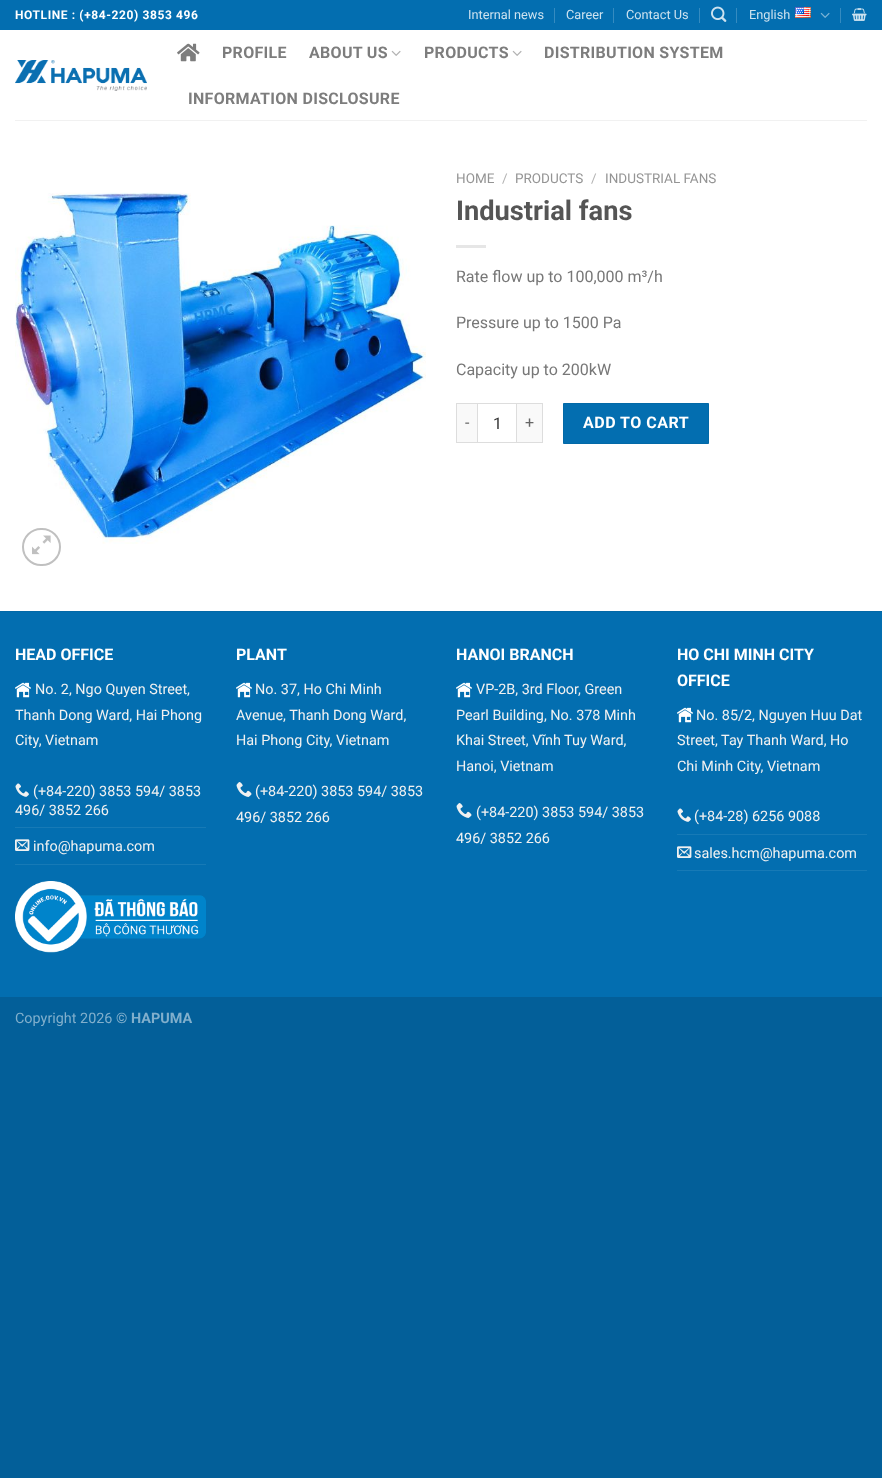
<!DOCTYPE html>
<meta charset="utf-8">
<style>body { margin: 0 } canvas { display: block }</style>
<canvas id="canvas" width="882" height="1478"></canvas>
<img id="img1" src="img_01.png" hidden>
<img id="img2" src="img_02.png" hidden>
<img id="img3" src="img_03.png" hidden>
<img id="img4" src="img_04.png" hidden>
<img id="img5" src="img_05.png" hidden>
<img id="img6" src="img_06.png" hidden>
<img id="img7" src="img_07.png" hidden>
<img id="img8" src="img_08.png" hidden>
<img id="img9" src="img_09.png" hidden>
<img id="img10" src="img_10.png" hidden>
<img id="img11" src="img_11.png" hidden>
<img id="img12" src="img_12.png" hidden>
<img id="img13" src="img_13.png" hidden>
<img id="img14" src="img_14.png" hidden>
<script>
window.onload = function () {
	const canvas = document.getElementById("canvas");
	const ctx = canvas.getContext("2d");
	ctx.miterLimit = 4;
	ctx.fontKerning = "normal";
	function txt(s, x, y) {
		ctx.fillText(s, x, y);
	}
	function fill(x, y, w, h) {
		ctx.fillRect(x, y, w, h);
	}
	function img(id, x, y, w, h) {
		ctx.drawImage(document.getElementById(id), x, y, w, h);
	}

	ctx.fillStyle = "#035F99";
	fill(0, 0, 882, 1478);
	ctx.fillStyle = "#FFFFFF";
	fill(0, 30, 882, 581);
	ctx.fillStyle = "#036EB0";
	fill(0, 0, 882, 30);
	ctx.fillStyle = "#358BC0";
	fill(554, 8, 1, 15);
	fill(613, 8, 1, 15);
	fill(699, 8, 1, 15);
	img("img1", 711, 6, 16, 16);
	fill(736, 8, 1, 15);
	img("img2", 795, 7, 16, 11);
	img("img3", 820, 12, 10, 6);
	fill(840, 8, 1, 15);
	img("img4", 852, 8, 15, 13);
	img("img5", 15, 60, 132, 31);
	img("img6", 177, 43, 23, 19);
	img("img7", 391, 50, 10, 6);
	img("img7", 512, 50, 10, 6);
	ctx.fillStyle = "#F1F1F1";
	fill(15, 120, 852, 1);
	img("img8", 15, 192, 411, 352);
	ctx.beginPath();
	ctx.roundRect(23, 529, 37, 36, 18);
	ctx.strokeStyle = "#C0C0C0";
	ctx.lineWidth = 2;
	ctx.stroke();
	img("img9", 32, 535, 19, 20);
	ctx.fillStyle = "#E6E6E6";
	fill(456, 245, 30, 3);
	ctx.fillStyle = "#F9F9F9";
	fill(457, 404, 20, 38);
	ctx.fillStyle = "#DDDDDD";
	fill(456, 403, 21, 1);
	fill(456, 442, 21, 1);
	fill(456, 403, 1, 40);
	ctx.strokeStyle = "#DDDDDD";
	ctx.lineWidth = 1;
	ctx.strokeRect(477.5, 403.5, 39, 39);
	ctx.fillStyle = "#F9F9F9";
	fill(517, 404, 25, 38);
	ctx.fillStyle = "#DDDDDD";
	fill(517, 403, 26, 1);
	fill(542, 403, 1, 40);
	fill(517, 442, 26, 1);
	ctx.fillStyle = "#036EB0";
	ctx.beginPath();
	ctx.rect(563.5, 403.5, 145, 40);
	ctx.fill();
	ctx.strokeStyle = "#0369A7";
	ctx.stroke();
	fill(0, 612, 882, 385);
	ctx.fillStyle = "#0369A7";
	fill(0, 611, 882, 1);
	img("img10", 15, 682, 16, 16);
	ctx.fillStyle = "#177AB6";
	fill(15, 827, 191, 1);
	img("img11", 15, 783, 14, 14);
	fill(15, 864, 191, 1);
	img("img12", 15, 839, 15, 12);
	img("img13", 15, 881, 191, 72);
	img("img10", 236, 682, 16, 16);
	img("img14", 236, 782, 16, 15);
	img("img10", 456, 682, 16, 16);
	img("img14", 456, 803, 16, 15);
	img("img10", 677, 707, 16, 16);
	fill(677, 834, 190, 1);
	img("img11", 677, 808, 14, 14);
	fill(677, 870, 190, 1);
	img("img12", 677, 846, 15, 12);
	ctx.letterSpacing = "0.6px";
	ctx.font = "bold 12px Roboto";
	ctx.fillStyle = "#FFFFFF";
	txt("HOTLINE : (+84-220) 3853 496", 15, 19);
	ctx.letterSpacing = "0px";
	ctx.font = "12.75px Roboto";
	ctx.fillStyle = "#CDE2EF";
	txt("Internal news", 468, 19);
	txt("Career", 566, 19);
	txt("Contact Us", 626, 19);
	txt("English", 749, 19);
	ctx.letterSpacing = "0.3px";
	ctx.font = "bold 16px Roboto";
	ctx.fillStyle = "#7D7D7D";
	txt("PROFILE", 222, 58);
	txt("ABOUT US", 309, 58);
	txt("PRODUCTS", 424, 58);
	txt("DISTRIBUTION SYSTEM", 544, 58);
	txt("INFORMATION DISCLOSURE", 188, 104);
	ctx.letterSpacing = "0px";
	ctx.font = "13.5px Roboto";
	ctx.fillStyle = "#949494";
	txt("HOME", 456, 183);
	ctx.fillStyle = "#B2B2B2";
	txt("/", 502, 183);
	ctx.fillStyle = "#949494";
	txt("PRODUCTS", 515, 183);
	ctx.fillStyle = "#B2B2B2";
	txt("/", 591, 183);
	ctx.fillStyle = "#949494";
	txt("INDUSTRIAL FANS", 605, 183);
	ctx.font = "bold 27.25px Roboto";
	ctx.fillStyle = "#555555";
	txt("Industrial fans", 456, 220);
	ctx.font = "16px Roboto";
	ctx.fillStyle = "#777777";
	txt("Rate flow up to 100,000 m³/h", 456, 282);
	txt("Pressure up to 1500 Pa", 456, 328);
	txt("Capacity up to 200kW", 456, 375);
	ctx.fillStyle = "#666666";
	txt("-", 465, 428);
	ctx.fillStyle = "#333333";
	txt("1", 493, 429);
	ctx.fillStyle = "#666666";
	txt("+", 525, 428);
	ctx.letterSpacing = "0.5px";
	ctx.font = "bold 16px Roboto";
	ctx.fillStyle = "#FFFFFF";
	txt("ADD TO CART", 583, 428);
	ctx.letterSpacing = "0px";
	txt("HEAD OFFICE", 15, 660);
	ctx.font = "14.4px Roboto";
	ctx.fillStyle = "#F1F1F1";
	txt("No. 2, Ngo Quyen Street,", 35, 694);
	txt("Thanh Dong Ward, Hai Phong", 15, 720);
	txt("City, Vietnam", 15, 745);
	txt("(+84-220) 3853 594/ 3853", 33, 796);
	txt("496/ 3852 266", 15, 815);
	txt("info@hapuma.com", 33, 851);
	ctx.font = "bold 16px Roboto";
	ctx.fillStyle = "#FFFFFF";
	txt("PLANT", 236, 660);
	ctx.font = "14.4px Roboto";
	ctx.fillStyle = "#F1F1F1";
	txt("No. 37, Ho Chi Minh", 255, 694);
	txt("Avenue, Thanh Dong Ward,", 236, 720);
	txt("Hai Phong City, Vietnam", 236, 745);
	txt("(+84-220) 3853 594/ 3853", 255, 796);
	txt("496/ 3852 266", 236, 822);
	ctx.font = "bold 16px Roboto";
	ctx.fillStyle = "#FFFFFF";
	txt("HANOI BRANCH", 456, 660);
	ctx.font = "14.4px Roboto";
	ctx.fillStyle = "#F1F1F1";
	txt("VP-2B, 3rd Floor, Green", 476, 694);
	txt("Pearl Building, No. 378 Minh", 456, 720);
	txt("Khai Street, Vĩnh Tuy Ward,", 456, 745);
	txt("Hanoi, Vietnam", 456, 771);
	txt("(+84-220) 3853 594/ 3853", 476, 817);
	txt("496/ 3852 266", 456, 843);
	ctx.font = "bold 16px Roboto";
	ctx.fillStyle = "#FFFFFF";
	txt("HO CHI MINH CITY", 677, 660);
	txt("OFFICE", 677, 686);
	ctx.font = "14.4px Roboto";
	ctx.fillStyle = "#F1F1F1";
	txt("No. 85/2, Nguyen Huu Dat", 696, 720);
	txt("Street, Tay Thanh Ward, Ho", 677, 745);
	txt("Chi Minh City, Vietnam", 677, 771);
	txt("(+84-28) 6256 9088", 694, 821);
	txt("sales.hcm@hapuma.com", 694, 858);
	ctx.fillStyle = "#81AFCC";
	txt("Copyright 2026 ©", 15, 1023);
	ctx.font = "bold 14.4px Roboto";
	txt("HAPUMA", 131, 1023);
};
</script>
